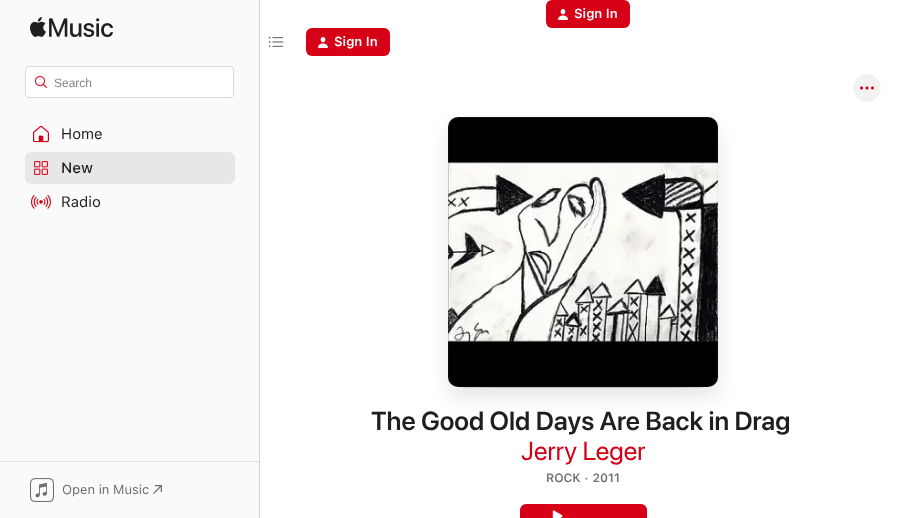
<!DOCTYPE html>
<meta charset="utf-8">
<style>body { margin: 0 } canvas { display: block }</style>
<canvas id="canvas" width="906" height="518"></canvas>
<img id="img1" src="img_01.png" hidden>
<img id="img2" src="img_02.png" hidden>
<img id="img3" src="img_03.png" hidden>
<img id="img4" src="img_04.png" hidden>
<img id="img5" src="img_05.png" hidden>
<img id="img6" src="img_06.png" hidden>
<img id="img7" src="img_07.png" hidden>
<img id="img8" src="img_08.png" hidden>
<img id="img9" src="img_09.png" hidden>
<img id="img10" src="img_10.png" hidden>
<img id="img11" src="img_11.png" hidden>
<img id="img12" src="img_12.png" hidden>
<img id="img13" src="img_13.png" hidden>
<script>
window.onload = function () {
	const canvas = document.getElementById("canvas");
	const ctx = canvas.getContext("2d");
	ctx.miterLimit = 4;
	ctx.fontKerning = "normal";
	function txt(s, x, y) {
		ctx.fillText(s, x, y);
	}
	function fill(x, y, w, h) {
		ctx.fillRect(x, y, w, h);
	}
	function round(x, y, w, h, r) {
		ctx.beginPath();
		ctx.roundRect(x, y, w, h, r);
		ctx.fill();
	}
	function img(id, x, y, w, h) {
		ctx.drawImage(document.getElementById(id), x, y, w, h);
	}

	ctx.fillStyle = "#FFFFFF";
	fill(0, 0, 906, 518);
	ctx.fillStyle = "#D60017";
	round(546, 0, 84, 28, 6);
	img("img1", 558, 9, 10, 11);
	img("img2", 268, 36, 16, 12);
	round(306, 28, 84, 28, 6);
	img("img1", 318, 37, 10, 11);
	ctx.fillStyle = "#FAFAFA";
	fill(0, 0, 259, 518);
	ctx.fillStyle = "#E1E1E1";
	fill(0, 461, 260, 1);
	ctx.fillStyle = "#D5D5D5";
	fill(259, 0, 1, 518);
	ctx.fillStyle = "#C0C0C0";
	fill(259, 461, 1, 1);
	img("img3", 30, 17, 83, 20);
	ctx.fillStyle = "#FFFFFF";
	ctx.beginPath();
	ctx.roundRect(25.5, 66.5, 208, 31, 3.5);
	ctx.fill();
	ctx.strokeStyle = "#D9D9D9";
	ctx.stroke();
	img("img4", 35, 76, 12, 12);
	img("img5", 33, 125, 16, 18);
	ctx.fillStyle = "#E7E7E8";
	round(25, 152, 210, 32, 6);
	img("img6", 34, 161, 14, 14);
	img("img7", 31, 195, 20, 14);
	img("img8", 30, 478, 24, 24);
	img("img9", 153, 485, 9, 9);
	img("img10", 853, 74, 28, 28);
	ctx.fillStyle = "rgba(0, 0, 0, 0.1)";
	ctx.filter = "blur(10px)";
	ctx.beginPath();
	ctx.roundRect(448, 127, 270, 270, 10);
	ctx.fill();
	ctx.filter = "none";
	img("img11", 448, 117, 270, 270);
	ctx.beginPath();
	ctx.roundRect(448.5, 117.5, 269, 269, 9.5);
	ctx.strokeStyle = "rgba(128, 128, 128, 0.1)";
	ctx.stroke();
	img("img12", 463, 387, 240, 1);
	ctx.fillStyle = "#D60017";
	ctx.beginPath();
	ctx.roundRect(520, 504, 127, 14, [6, 6, 0, 0]);
	ctx.fill();
	img("img13", 552, 510, 11, 8);
	ctx.font = "600 13px SF";
	ctx.fillStyle = "#FFFFFF";
	txt("Sign In", 574, 18);
	txt("Sign In", 334, 46);
	ctx.font = "12px Liberation Sans";
	ctx.fillStyle = "#858585";
	txt("Search", 54, 87);
	ctx.font = "15px 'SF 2'";
	ctx.fillStyle = "#1F1F1F";
	txt("Home", 61, 139);
	ctx.font = "500 15px SF";
	txt("New", 61, 173);
	ctx.font = "15px 'SF 2'";
	txt("Radio", 61, 207);
	ctx.font = "13px 'SF 2'";
	ctx.fillStyle = "#707070";
	txt("Open in Music", 62, 494);
	ctx.font = "600 26px 'SF 2'";
	ctx.fillStyle = "#1F1F1F";
	txt("The Good Old Days Are Back in Drag", 371, 430);
	ctx.font = "26px SF";
	ctx.fillStyle = "#D60017";
	txt("Jerry Leger", 521, 460);
	ctx.font = "600 12px SF";
	ctx.fillStyle = "#707070";
	txt("ROCK · 2011", 546, 482);
};
</script>
